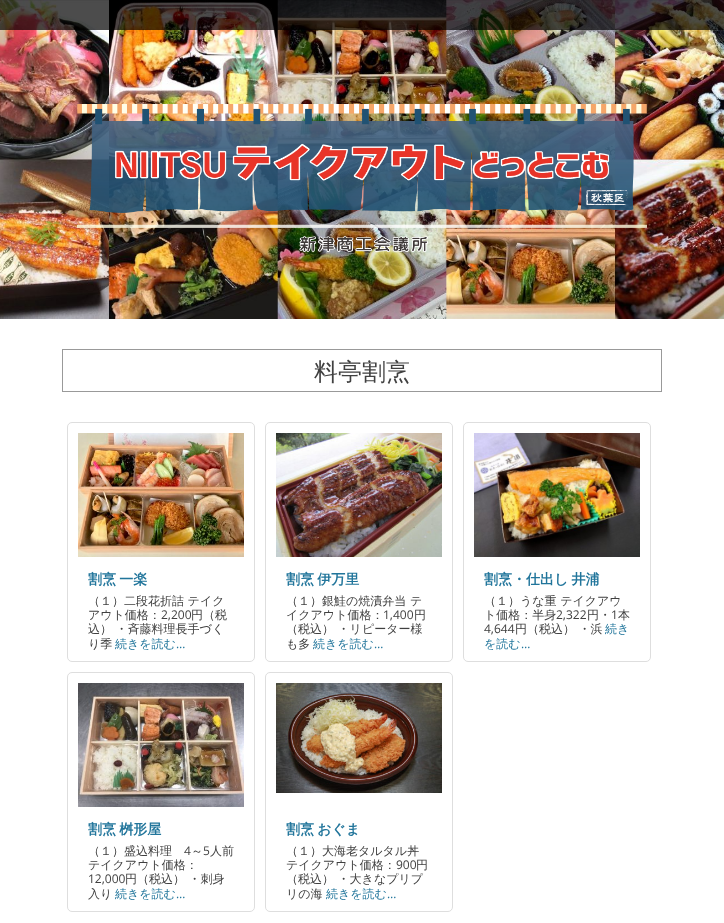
<!DOCTYPE html>
<meta charset="utf-8">
<style>body { margin: 0 } canvas { display: block }</style>
<canvas id="canvas" width="724" height="923"></canvas>
<img id="img1" src="img_01.png" hidden>
<img id="img2" src="img_02.png" hidden>
<img id="img3" src="img_03.png" hidden>
<img id="img4" src="img_04.png" hidden>
<img id="img5" src="img_05.png" hidden>
<img id="img6" src="img_06.png" hidden>
<img id="img7" src="img_07.png" hidden>
<script>
window.onload = function () {
	const canvas = document.getElementById("canvas");
	const ctx = canvas.getContext("2d");
	ctx.miterLimit = 4;
	ctx.fontKerning = "normal";
	function txt(s, x, y) {
		ctx.fillText(s, x, y);
	}
	function fill(x, y, w, h) {
		ctx.fillRect(x, y, w, h);
	}
	function img(id, x, y, w, h) {
		ctx.drawImage(document.getElementById(id), x, y, w, h);
	}

	ctx.fillStyle = "#FFFFFF";
	fill(0, 0, 724, 923);
	img("img1", 0, 0, 724, 319);
	img("img2", 77, 104, 570, 149);
	ctx.fillStyle = "rgba(0, 0, 0, 0.7)";
	fill(0, 0, 724, 30);
	ctx.strokeStyle = "#999999";
	ctx.strokeRect(62.5, 349.5, 599, 42);
	ctx.beginPath();
	ctx.roundRect(67.5, 422.5, 187, 239, 4.5);
	ctx.strokeStyle = "#DEDEDE";
	ctx.stroke();
	img("img3", 78, 433, 166, 124);
	ctx.beginPath();
	ctx.roundRect(265.5, 422.5, 187, 239, 4.5);
	ctx.stroke();
	img("img4", 276, 433, 166, 124);
	ctx.beginPath();
	ctx.roundRect(463.5, 422.5, 187, 239, 4.5);
	ctx.stroke();
	img("img5", 474, 433, 166, 124);
	ctx.beginPath();
	ctx.roundRect(67.5, 672.5, 187, 239, 4.5);
	ctx.stroke();
	img("img6", 78, 683, 166, 124);
	ctx.beginPath();
	ctx.roundRect(265.5, 672.5, 187, 239, 4.5);
	ctx.stroke();
	img("img7", 276, 683, 166, 110);
	ctx.font = "500 24px WenQuanYi Zen Hei";
	ctx.fillStyle = "#404040";
	txt("料亭割烹", 314, 380);
	ctx.wordSpacing = "-1px";
	ctx.font = "bold 14px WenQuanYi Zen Hei";
	ctx.fillStyle = "#21759B";
	txt("割烹 一楽", 88, 584);
	ctx.wordSpacing = "0px";
	ctx.font = "500 12px WenQuanYi Zen Hei";
	ctx.fillStyle = "#404040";
	txt("（１）二段花折詰 テイク", 88, 605);
	txt("アウト価格：", 88, 619);
	ctx.font = "12px Open Sans";
	txt("2,200", 161, 619);
	ctx.font = "500 12px WenQuanYi Zen Hei";
	txt("円（税", 191, 619);
	txt("込） ・斉藤料理長手づく", 88, 633);
	txt("り季", 88, 648);
	ctx.fillStyle = "#21759B";
	txt("続きを読む", 115, 648);
	ctx.font = "12px Open Sans";
	txt("…", 176, 648);
	ctx.wordSpacing = "-1px";
	ctx.font = "bold 14px WenQuanYi Zen Hei";
	txt("割烹 伊万里", 286, 584);
	ctx.wordSpacing = "0px";
	ctx.font = "500 12px WenQuanYi Zen Hei";
	ctx.fillStyle = "#404040";
	txt("（１）銀鮭の焼漬弁当 テ", 286, 605);
	txt("イクアウト価格：", 286, 619);
	ctx.font = "12px Open Sans";
	txt("1,400", 383, 619);
	ctx.font = "500 12px WenQuanYi Zen Hei";
	txt("円", 414, 619);
	txt("（税込） ・リピーター様", 286, 633);
	txt("も多", 286, 648);
	ctx.fillStyle = "#21759B";
	txt("続きを読む", 313, 648);
	ctx.font = "12px Open Sans";
	txt("…", 374, 648);
	ctx.wordSpacing = "-1px";
	ctx.font = "bold 14px WenQuanYi Zen Hei";
	txt("割烹・仕出し 井浦", 484, 584);
	ctx.wordSpacing = "0px";
	ctx.font = "500 12px WenQuanYi Zen Hei";
	ctx.fillStyle = "#404040";
	txt("（１）うな重 テイクアウ", 484, 605);
	txt("ト価格：半身", 484, 619);
	ctx.font = "12px Open Sans";
	txt("2,322", 556, 619);
	ctx.font = "500 12px WenQuanYi Zen Hei";
	txt("円・", 587, 619);
	ctx.font = "12px Open Sans";
	txt("1", 611, 619);
	ctx.font = "500 12px WenQuanYi Zen Hei";
	txt("本", 618, 619);
	ctx.font = "12px Open Sans";
	txt("4,644", 484, 633);
	ctx.font = "500 12px WenQuanYi Zen Hei";
	txt("円（税込） ・浜", 515, 633);
	ctx.fillStyle = "#21759B";
	txt("続き", 605, 633);
	txt("を読む", 484, 648);
	ctx.font = "12px Open Sans";
	txt("…", 521, 648);
	ctx.wordSpacing = "-1px";
	ctx.font = "bold 14px WenQuanYi Zen Hei";
	txt("割烹 桝形屋", 88, 834);
	ctx.wordSpacing = "0px";
	ctx.font = "500 12px WenQuanYi Zen Hei";
	ctx.fillStyle = "#404040";
	txt("（１）盛込料理", 88, 855);
	ctx.font = "12px Open Sans";
	txt("4", 184, 855);
	ctx.font = "500 12px WenQuanYi Zen Hei";
	txt("～", 191, 855);
	ctx.font = "12px Open Sans";
	txt("5", 203, 855);
	ctx.font = "500 12px WenQuanYi Zen Hei";
	txt("人前", 210, 855);
	txt("テイクアウト価格：", 88, 869);
	ctx.font = "12px Open Sans";
	txt("12,000", 88, 883);
	ctx.font = "500 12px WenQuanYi Zen Hei";
	txt("円（税込） ・刺身", 125, 883);
	txt("入り", 88, 898);
	ctx.fillStyle = "#21759B";
	txt("続きを読む", 115, 898);
	ctx.font = "12px Open Sans";
	txt("…", 176, 898);
	ctx.wordSpacing = "-1px";
	ctx.font = "bold 14px WenQuanYi Zen Hei";
	txt("割烹 おぐま", 286, 834);
	ctx.wordSpacing = "0px";
	ctx.font = "500 12px WenQuanYi Zen Hei";
	ctx.fillStyle = "#404040";
	txt("（１）大海老タルタル丼", 286, 855);
	txt("テイクアウト価格：", 286, 869);
	ctx.font = "12px Open Sans";
	txt("900", 396, 869);
	ctx.font = "500 12px WenQuanYi Zen Hei";
	txt("円", 416, 869);
	txt("（税込） ・大きなプリプ", 286, 883);
	txt("リの海", 286, 898);
	ctx.fillStyle = "#21759B";
	txt("続きを読む", 326, 898);
	ctx.font = "12px Open Sans";
	txt("…", 387, 898);
};
</script>
